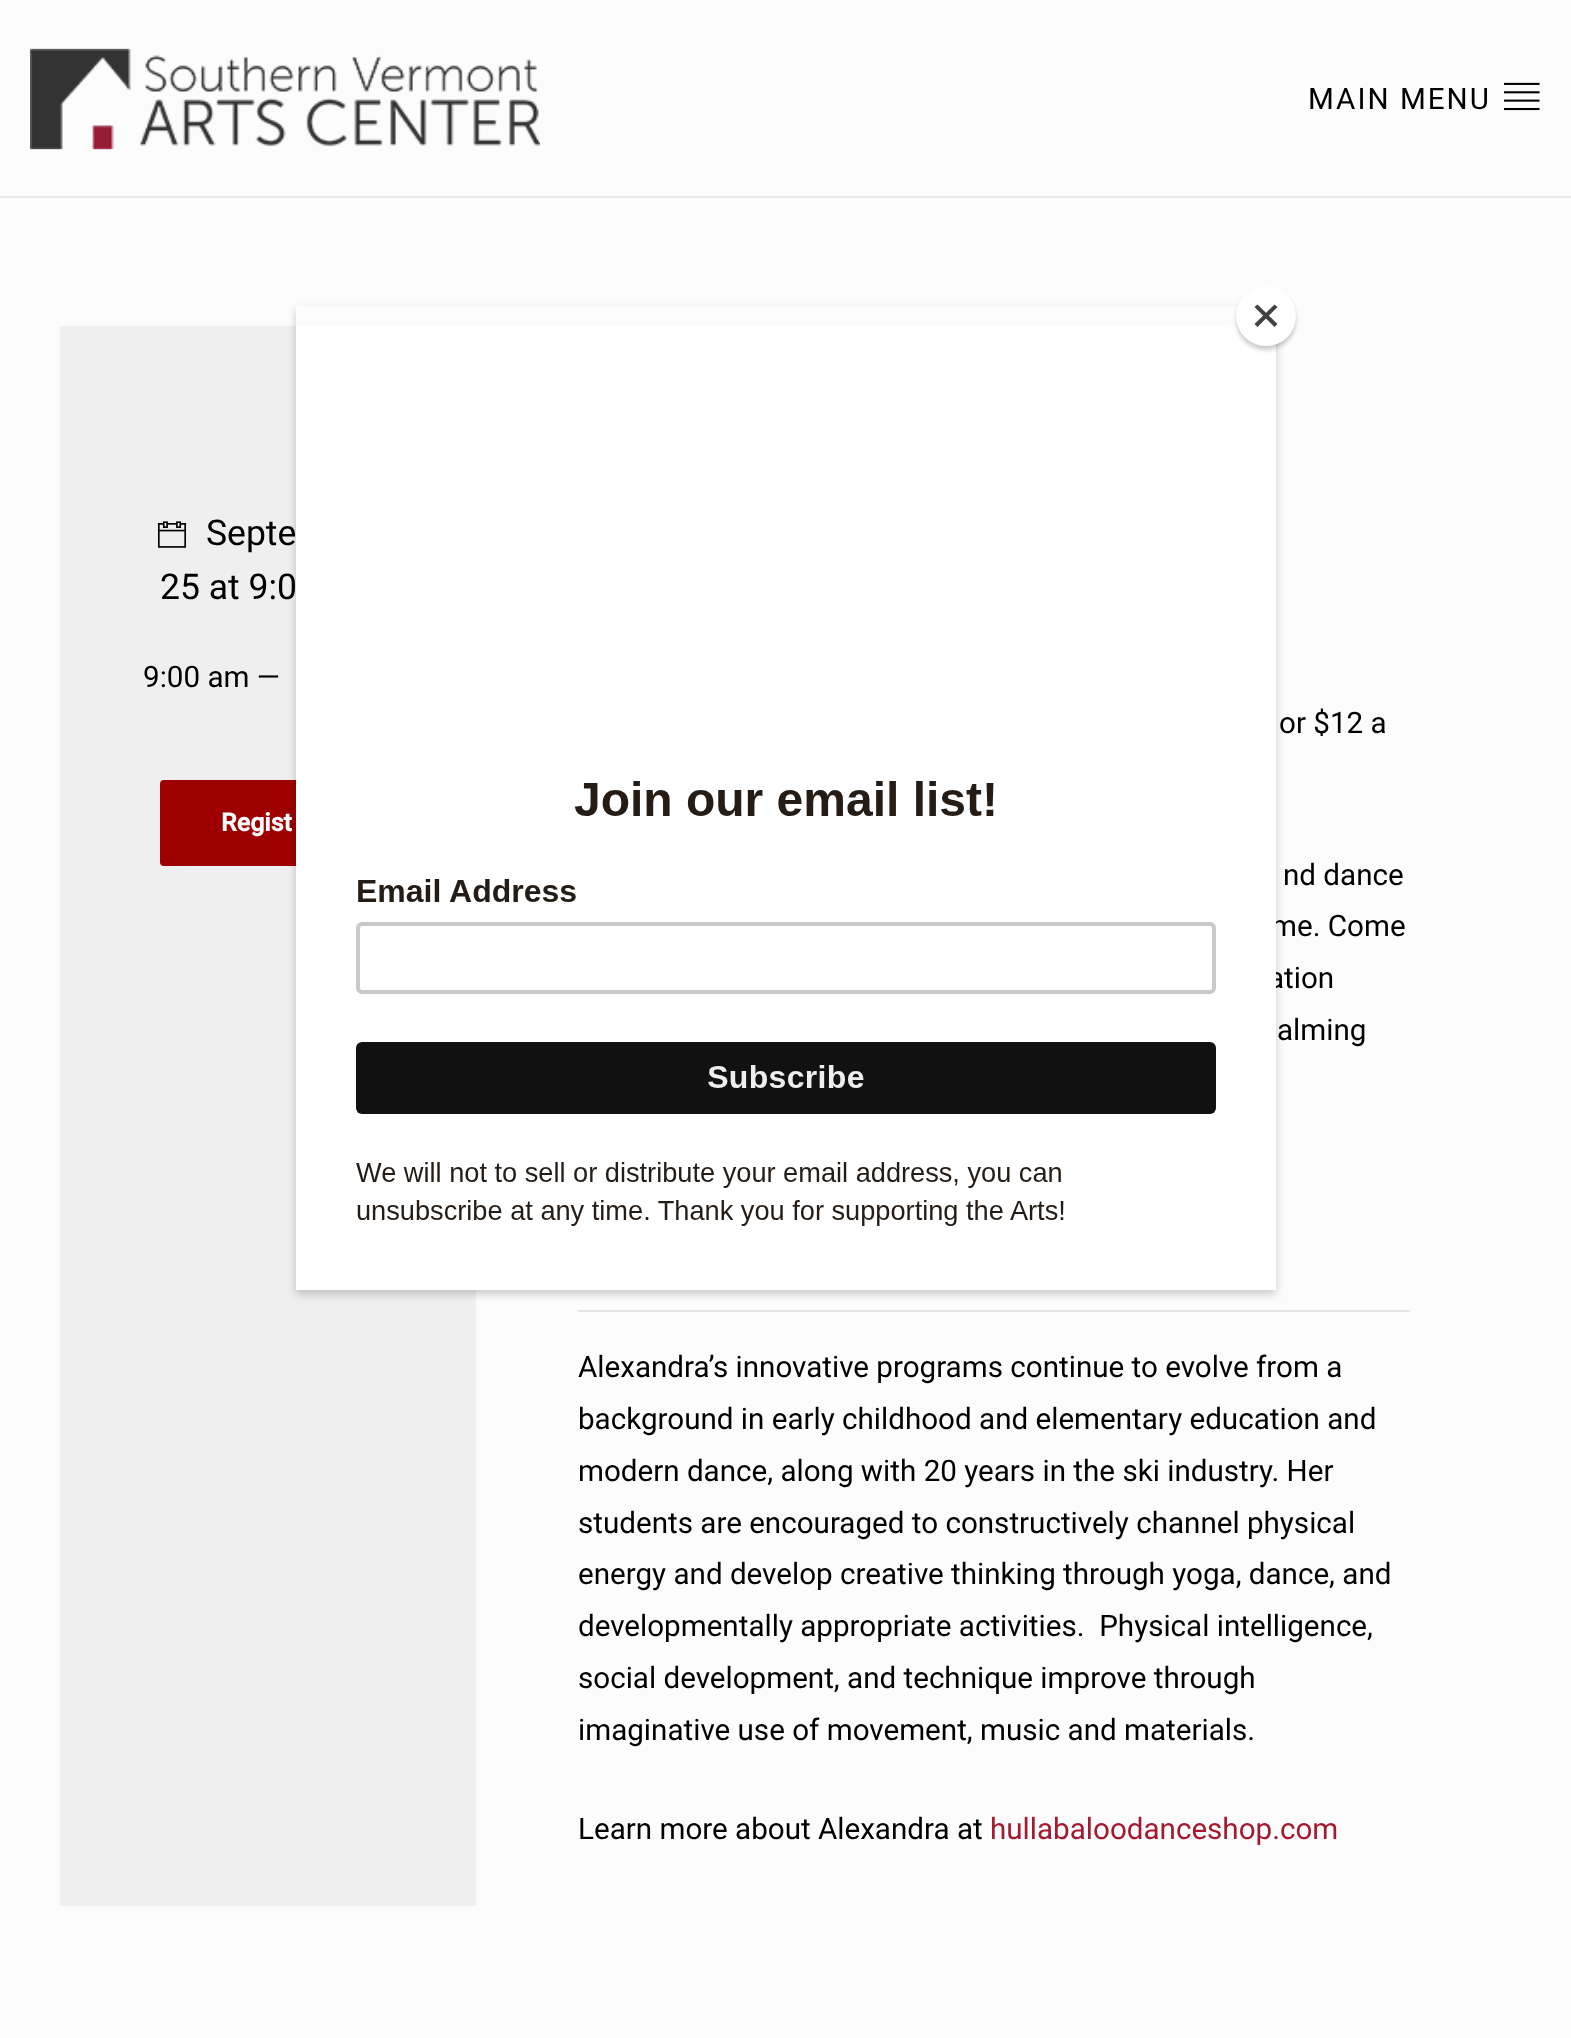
<!DOCTYPE html>
<meta charset="utf-8">
<style>body { margin: 0 } canvas { display: block }</style>
<canvas id="canvas" width="1571" height="2038"></canvas>
<img id="img1" src="img_01.png" hidden>
<img id="img2" src="img_02.png" hidden>
<img id="img3" src="img_03.png" hidden>
<img id="img4" src="img_04.png" hidden>
<script>
window.onload = function () {
	const canvas = document.getElementById("canvas");
	const ctx = canvas.getContext("2d");
	ctx.miterLimit = 4;
	ctx.fontKerning = "normal";
	function txt(s, x, y) {
		ctx.fillText(s, x, y);
	}
	function fill(x, y, w, h) {
		ctx.fillRect(x, y, w, h);
	}
	function round(x, y, w, h, r) {
		ctx.beginPath();
		ctx.roundRect(x, y, w, h, r);
		ctx.fill();
	}
	function img(id, x, y, w, h) {
		ctx.drawImage(document.getElementById(id), x, y, w, h);
	}

	ctx.fillStyle = "#FCFCFC";
	fill(0, 0, 1571, 2038);
	img("img1", 30, 48, 510, 102);
	img("img2", 1504, 82, 36, 29);
	ctx.fillStyle = "#EAEAEA";
	fill(0, 196, 1571, 2);
	img("img3", 158, 521, 28, 27);
	ctx.fillStyle = "rgba(0, 0, 0, 0.05)";
	fill(60, 326, 416, 1580);
	ctx.fillStyle = "#9E0000";
	round(160, 780, 216, 86, 4);
	ctx.fillStyle = "#E4E4E4";
	fill(578, 1310, 832, 2);
	ctx.save();
	ctx.beginPath();
	ctx.moveTo(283, 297);
	ctx.lineTo(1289, 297);
	ctx.lineTo(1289, 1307);
	ctx.lineTo(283, 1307);
	ctx.closePath();
	ctx.moveTo(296, 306);
	ctx.lineTo(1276, 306);
	ctx.lineTo(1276, 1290);
	ctx.lineTo(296, 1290);
	ctx.closePath();
	ctx.clip("evenodd");
	ctx.fillStyle = "rgba(0, 0, 0, 0.2)";
	ctx.filter = "blur(4px)";
	ctx.beginPath();
	ctx.rect(296, 310, 980, 984);
	ctx.fill();
	ctx.filter = "none";
	ctx.restore();
	ctx.letterSpacing = "2px";
	ctx.font = "29.6px Roboto";
	ctx.fillStyle = "#000000";
	txt("MAIN MENU", 1308, 109);
	ctx.letterSpacing = "0px";
	ctx.font = "35.5px Roboto";
	txt("Septe", 206, 545);
	txt("25 at 9:0", 160, 599);
	ctx.font = "29.6px Roboto";
	txt("9:00 am —", 143, 687);
	ctx.font = "bold 25px Roboto";
	ctx.fillStyle = "#FCFCFC";
	txt("Regist", 221, 831);
	ctx.font = "29.6px Roboto";
	ctx.fillStyle = "#000000";
	txt("or $12 a", 1279, 733);
	txt("nd dance", 1283, 885);
	txt("me. Come", 1271, 936);
	txt("ation", 1268, 988);
	txt("alming", 1277, 1040);
	txt("Alexandra’s innovative programs continue to evolve from a", 578, 1377);
	txt("background in early childhood and elementary education and", 578, 1429);
	txt("modern dance, along with 20 years in the ski industry. Her", 578, 1481);
	txt("students are encouraged to constructively channel physical", 578, 1533);
	txt("energy and develop creative thinking through yoga, dance, and", 578, 1584);
	txt("developmentally appropriate activities.  Physical intelligence,", 578, 1636);
	txt("social development, and technique improve through", 578, 1688);
	txt("imaginative use of movement, music and materials.", 578, 1740);
	txt("Learn more about Alexandra at", 578, 1839);
	ctx.fillStyle = "#A4192E";
	txt("hullabaloodanceshop.com", 990, 1839);
	img("img4", 296, 326, 980, 964);
	ctx.fillStyle = "rgba(0, 0, 0, 0.2)";
	ctx.filter = "blur(2px)";
	ctx.beginPath();
	ctx.roundRect(1236, 290, 60, 60, 30);
	ctx.fill();
	ctx.filter = "none";
	ctx.fillStyle = "#FFFFFF";
	ctx.beginPath();
	ctx.arc(1266, 316, 30, 0, Math.PI * 2);
	ctx.fill();
	ctx.fillStyle = "#414141";
	ctx.beginPath();
	ctx.moveTo(1274.5, 304.5);
	ctx.lineTo(1277.5, 307);
	ctx.lineTo(1257.5, 327);
	ctx.lineTo(1254.5, 324);
	ctx.closePath();
	ctx.fill();
	ctx.beginPath();
	ctx.moveTo(1254.5, 307);
	ctx.lineTo(1257.5, 304.5);
	ctx.lineTo(1277.5, 324);
	ctx.lineTo(1274.5, 327);
	ctx.closePath();
	ctx.fill();
};
</script>
